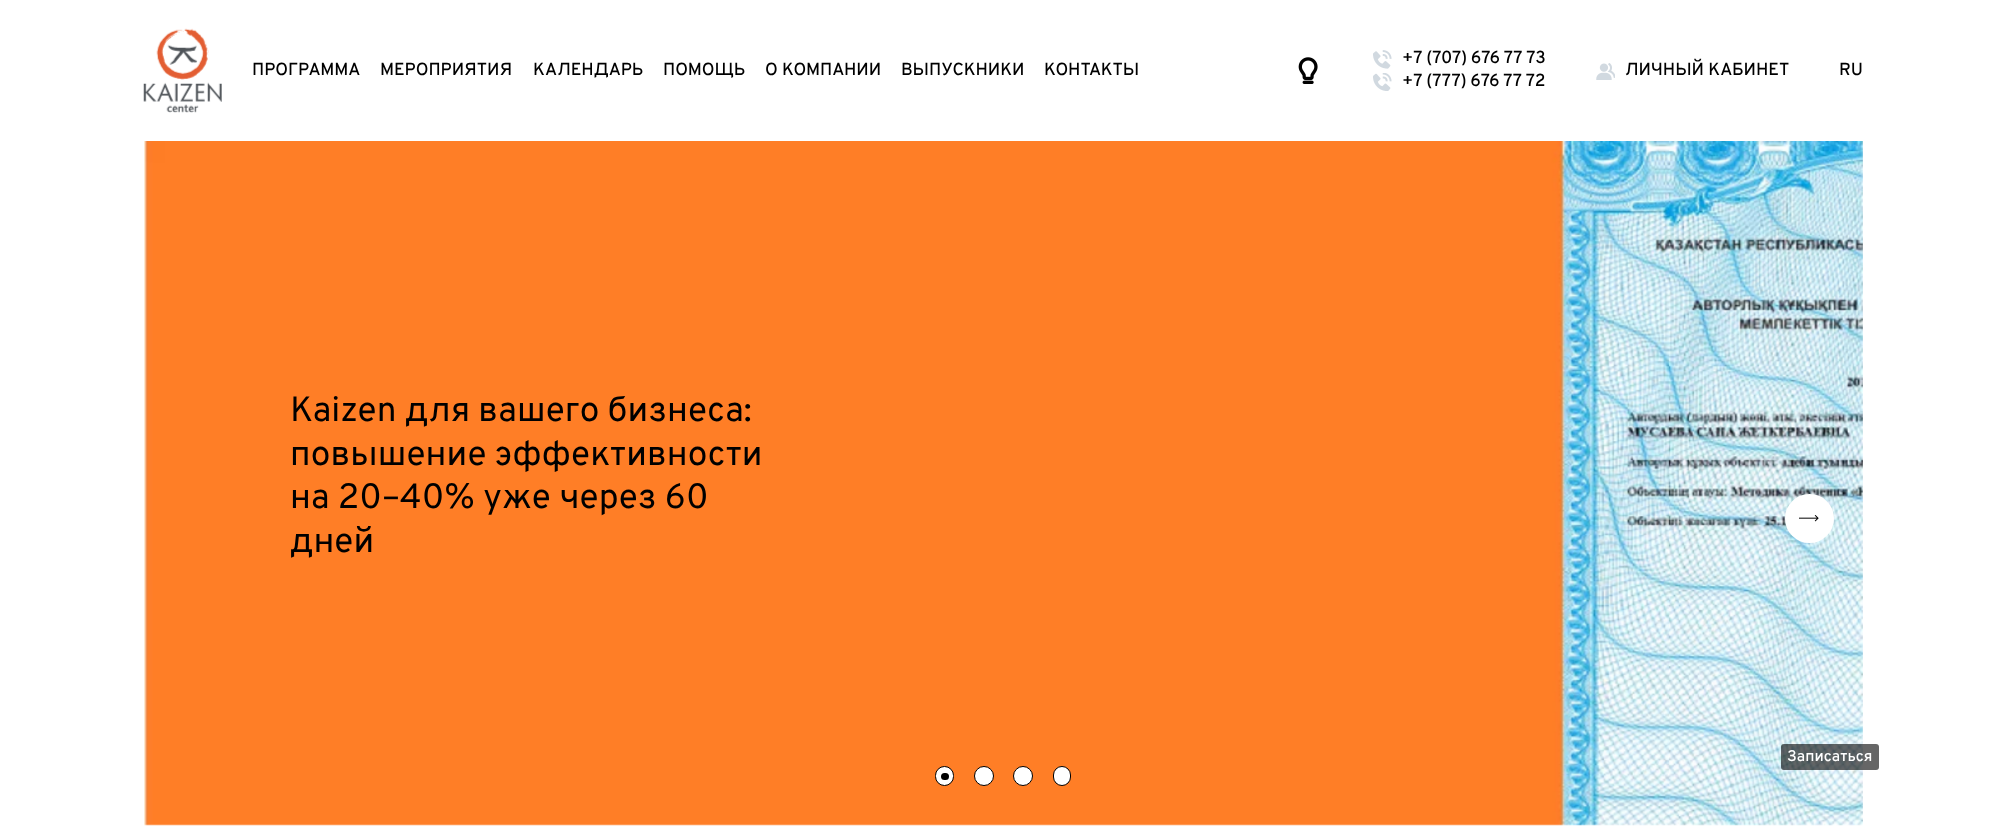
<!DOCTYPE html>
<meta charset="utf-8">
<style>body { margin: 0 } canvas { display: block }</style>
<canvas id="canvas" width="2006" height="840"></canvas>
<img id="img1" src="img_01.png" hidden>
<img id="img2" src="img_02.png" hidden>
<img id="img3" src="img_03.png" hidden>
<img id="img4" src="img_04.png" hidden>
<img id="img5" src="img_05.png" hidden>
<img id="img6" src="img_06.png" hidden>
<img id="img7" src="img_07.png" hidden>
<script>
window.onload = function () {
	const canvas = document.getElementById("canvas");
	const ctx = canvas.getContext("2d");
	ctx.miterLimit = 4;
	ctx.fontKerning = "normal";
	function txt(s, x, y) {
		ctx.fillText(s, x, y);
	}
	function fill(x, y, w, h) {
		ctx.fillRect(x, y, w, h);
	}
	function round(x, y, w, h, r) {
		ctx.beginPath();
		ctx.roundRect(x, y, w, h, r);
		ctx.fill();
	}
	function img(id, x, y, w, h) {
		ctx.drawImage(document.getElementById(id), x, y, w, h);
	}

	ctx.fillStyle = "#FFFFFF";
	fill(0, 0, 2006, 840);
	img("img1", 143, 28, 79, 85);
	img("img2", 1298, 57, 20, 27);
	img("img3", 1373, 50, 19, 19);
	img("img4", 1373, 73, 19, 18);
	img("img5", 1596, 63, 19, 17);
	img("img6", 144, 141, 1719, 685);
	ctx.beginPath();
	ctx.arc(1809.5, 518.5, 24.5, 0, Math.PI * 2);
	ctx.fill();
	img("img7", 1799, 515, 20, 7);
	ctx.beginPath();
	ctx.roundRect(935.5, 766.5, 18, 19, 9);
	ctx.fill();
	ctx.strokeStyle = "#000000";
	ctx.stroke();
	ctx.fillStyle = "#000000";
	round(941, 773, 8, 7, 3.5);
	ctx.fillStyle = "#FFFFFF";
	ctx.beginPath();
	ctx.arc(984, 776, 9.5, 0, Math.PI * 2);
	ctx.fill();
	ctx.stroke();
	ctx.beginPath();
	ctx.arc(1023, 776, 9.5, 0, Math.PI * 2);
	ctx.fill();
	ctx.stroke();
	ctx.beginPath();
	ctx.roundRect(1053.5, 766.5, 17, 19, 8.5);
	ctx.fill();
	ctx.stroke();
	ctx.fillStyle = "rgba(0, 0, 0, 0.6)";
	round(1781, 744, 98, 26, 3);
	ctx.font = "500 17.5px Overpass";
	ctx.fillStyle = "#000000";
	txt("ПРОГРАММА", 252, 75);
	txt("МЕРОПРИЯТИЯ", 380, 75);
	txt("КАЛЕНДАРЬ", 533, 75);
	txt("ПОМОЩЬ", 663, 75);
	txt("О КОМПАНИИ", 765, 75);
	txt("ВЫПУСКНИКИ", 901, 75);
	txt("КОНТАКТЫ", 1044, 75);
	ctx.wordSpacing = "-0.5px";
	txt("+7 (707) 676 77 73", 1402, 63);
	txt("+7 (777) 676 77 72", 1402, 86);
	ctx.wordSpacing = "0px";
	txt("ЛИЧНЫЙ КАБИНЕТ", 1625, 75);
	txt("RU", 1839, 75);
	ctx.font = "35.2px Overpass";
	txt("Kaizen для вашего бизнеса:", 290, 421);
	txt("повышение эффективности", 290, 465);
	txt("на 20–40% уже через 60", 290, 508);
	txt("дней", 290, 552);
	ctx.font = "500 15.5px Overpass";
	ctx.fillStyle = "#FFFFFF";
	txt("Записаться", 1787, 761);
};
</script>
